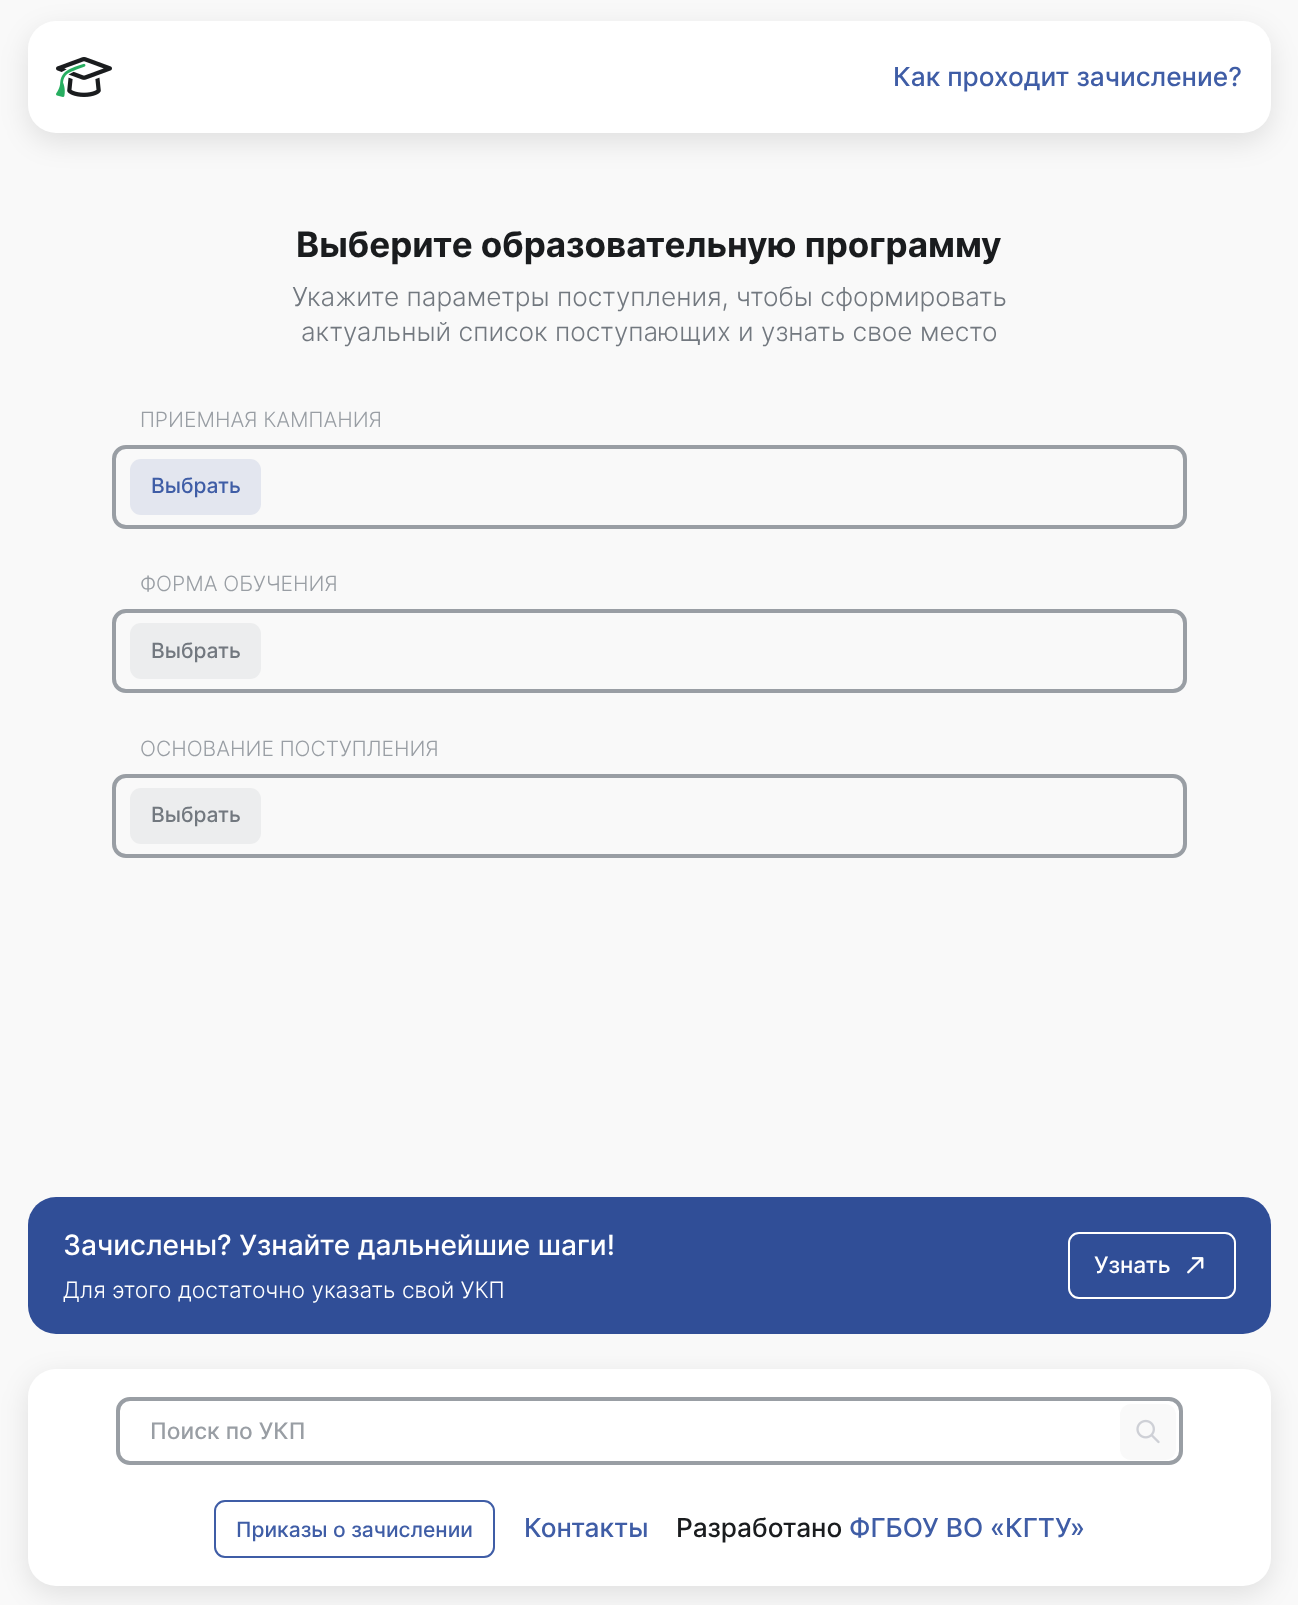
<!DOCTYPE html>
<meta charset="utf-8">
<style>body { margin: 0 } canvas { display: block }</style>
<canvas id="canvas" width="1298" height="1605"></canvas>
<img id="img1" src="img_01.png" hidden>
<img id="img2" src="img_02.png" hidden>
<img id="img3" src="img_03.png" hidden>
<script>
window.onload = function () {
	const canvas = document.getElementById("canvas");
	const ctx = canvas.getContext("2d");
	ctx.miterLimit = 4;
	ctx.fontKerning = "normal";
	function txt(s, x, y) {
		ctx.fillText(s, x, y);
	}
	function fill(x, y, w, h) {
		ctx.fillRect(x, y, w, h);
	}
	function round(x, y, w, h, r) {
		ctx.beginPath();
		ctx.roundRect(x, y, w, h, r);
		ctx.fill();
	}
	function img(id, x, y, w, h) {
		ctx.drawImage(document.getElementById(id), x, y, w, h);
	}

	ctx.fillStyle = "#F9F9F9";
	fill(0, 0, 1298, 1605);
	ctx.fillStyle = "rgba(0, 0, 0, 0.1)";
	ctx.filter = "blur(14px)";
	ctx.beginPath();
	ctx.roundRect(28, 30, 1243, 112, 28);
	ctx.fill();
	ctx.filter = "none";
	ctx.fillStyle = "#FFFFFF";
	round(28, 21, 1243, 112, 28);
	img("img1", 56, 57, 56, 40);
	ctx.beginPath();
	ctx.roundRect(114, 447, 1071, 80, 12);
	ctx.strokeStyle = "#999EA4";
	ctx.lineWidth = 4;
	ctx.stroke();
	ctx.fillStyle = "#E3E6EF";
	round(130, 459, 131, 56, 11);
	ctx.beginPath();
	ctx.roundRect(114, 611, 1071, 80, 12);
	ctx.stroke();
	ctx.fillStyle = "#ECEDEE";
	round(130, 623, 131, 56, 11);
	ctx.beginPath();
	ctx.roundRect(114, 776, 1071, 80, 12);
	ctx.stroke();
	round(130, 788, 131, 56, 11);
	ctx.fillStyle = "#304E97";
	round(28, 1197, 1243, 137, 28);
	ctx.beginPath();
	ctx.roundRect(1069, 1233, 166, 65, 10);
	ctx.strokeStyle = "#FFFFFF";
	ctx.lineWidth = 2;
	ctx.stroke();
	img("img2", 1187, 1257, 17, 17);
	ctx.fillStyle = "rgba(0, 0, 0, 0.1)";
	ctx.filter = "blur(14px)";
	ctx.beginPath();
	ctx.roundRect(28, 1377, 1243, 217, 28);
	ctx.fill();
	ctx.filter = "none";
	ctx.fillStyle = "#FFFFFF";
	round(28, 1369, 1243, 217, 28);
	ctx.beginPath();
	ctx.roundRect(118, 1399, 1063, 64, 12);
	ctx.strokeStyle = "#999EA4";
	ctx.lineWidth = 4;
	ctx.stroke();
	ctx.fillStyle = "#F9F9F9";
	round(1120, 1404, 56, 56, 11);
	img("img3", 1136, 1419, 24, 25);
	ctx.beginPath();
	ctx.roundRect(215, 1501, 279, 56, 10);
	ctx.strokeStyle = "#3F5DA6";
	ctx.lineWidth = 2;
	ctx.stroke();
	ctx.font = "500 26.25px Inter";
	ctx.fillStyle = "#3F5DA6";
	txt("Как проходит зачисление?", 893, 86);
	ctx.font = "bold 35px Inter";
	ctx.fillStyle = "#1A1C1E";
	txt("Выберите образовательную программу", 296, 257);
	ctx.font = "300 26.25px Inter";
	ctx.fillStyle = "#72787F";
	txt("Укажите параметры поступления, чтобы сформировать", 292, 306);
	txt("актуальный список поступающих и узнать свое место", 301, 341);
	ctx.font = "300 21px Inter";
	ctx.fillStyle = "#999EA4";
	txt("ПРИЕМНАЯ КАМПАНИЯ", 140, 427);
	ctx.font = "500 21px Inter";
	ctx.fillStyle = "#3F5DA6";
	txt("Выбрать", 151, 493);
	ctx.font = "300 21px Inter";
	ctx.fillStyle = "#999EA4";
	txt("ФОРМА ОБУЧЕНИЯ", 140, 591);
	ctx.font = "500 21px Inter";
	ctx.fillStyle = "#72787F";
	txt("Выбрать", 151, 658);
	ctx.font = "300 21px Inter";
	ctx.fillStyle = "#999EA4";
	txt("ОСНОВАНИЕ ПОСТУПЛЕНИЯ", 140, 756);
	ctx.font = "500 21px Inter";
	ctx.fillStyle = "#72787F";
	txt("Выбрать", 151, 822);
	ctx.font = "500 28px Inter";
	ctx.fillStyle = "#FFFFFF";
	txt("Зачислены? Узнайте дальнейшие шаги!", 63, 1255);
	ctx.font = "300 22.75px Inter";
	txt("Для этого достаточно указать свой УКП", 63, 1298);
	ctx.font = "500 22.75px Inter";
	txt("Узнать", 1094, 1273);
	ctx.fillStyle = "#999EA4";
	txt("Поиск по УКП", 150, 1439);
	ctx.font = "500 21px Inter";
	ctx.fillStyle = "#3F5DA6";
	txt("Приказы о зачислении", 236, 1537);
	ctx.font = "500 26.25px Inter";
	txt("Контакты", 524, 1537);
	ctx.fillStyle = "#1A1C1E";
	txt("Разработано", 676, 1537);
	ctx.fillStyle = "#3F5DA6";
	txt("ФГБОУ ВО «КГТУ»", 849, 1537);
};
</script>
